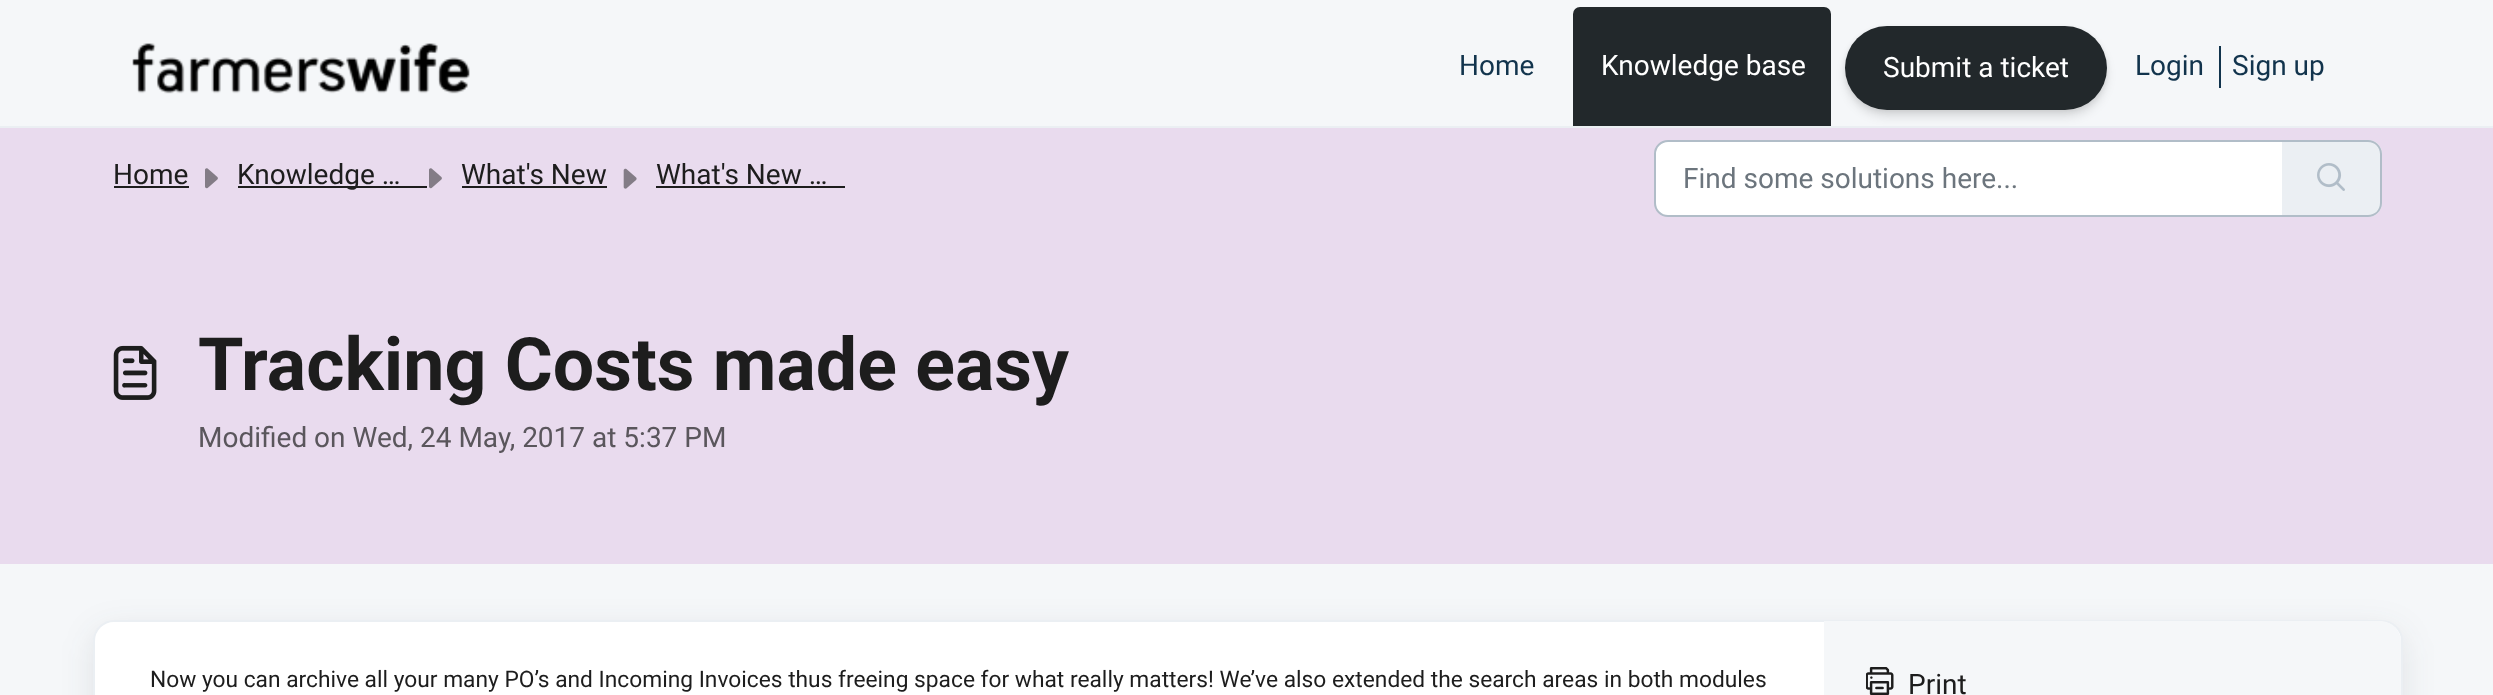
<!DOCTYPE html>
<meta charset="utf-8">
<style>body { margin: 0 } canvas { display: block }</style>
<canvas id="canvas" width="2493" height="695"></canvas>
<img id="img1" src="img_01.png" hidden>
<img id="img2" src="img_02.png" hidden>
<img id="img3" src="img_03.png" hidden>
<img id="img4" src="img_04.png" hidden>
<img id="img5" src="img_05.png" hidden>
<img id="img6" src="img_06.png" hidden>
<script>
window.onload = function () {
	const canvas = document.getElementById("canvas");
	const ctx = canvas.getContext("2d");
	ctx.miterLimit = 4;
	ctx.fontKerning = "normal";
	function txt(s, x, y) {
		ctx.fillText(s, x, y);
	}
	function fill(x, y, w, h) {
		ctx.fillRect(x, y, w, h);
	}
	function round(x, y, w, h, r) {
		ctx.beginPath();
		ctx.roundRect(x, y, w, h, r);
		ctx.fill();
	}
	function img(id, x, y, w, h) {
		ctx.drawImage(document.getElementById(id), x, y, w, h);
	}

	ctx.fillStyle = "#F5F7F9";
	fill(0, 0, 2493, 695);
	ctx.fillStyle = "#EBEFF3";
	fill(0, 126, 2493, 2);
	img("img1", 132, 43, 338, 51);
	ctx.fillStyle = "#22282B";
	ctx.beginPath();
	ctx.roundRect(1573, 7, 258, 119, [7, 7, 0, 0]);
	ctx.fill();
	ctx.fillStyle = "rgba(0, 0, 0, 0.08)";
	ctx.filter = "blur(2.5px)";
	ctx.beginPath();
	ctx.roundRect(1845, 28, 262, 84, 42);
	ctx.fill();
	ctx.filter = "none";
	ctx.fillStyle = "#E9DBEE";
	fill(0, 128, 2493, 436);
	ctx.fillStyle = "rgba(0, 0, 0, 0.1)";
	ctx.filter = "blur(5px)";
	ctx.beginPath();
	ctx.roundRect(1845, 33, 262, 84, 42);
	ctx.fill();
	ctx.filter = "none";
	ctx.fillStyle = "#22282B";
	round(1845, 26, 262, 84, 42);
	ctx.fillStyle = "#12344D";
	fill(2219, 46, 2, 42);
	ctx.fillStyle = "#1D1D1D";
	fill(114, 186, 75, 2);
	img("img2", 205, 168, 13, 21);
	fill(238, 186, 189, 2);
	img("img2", 429, 168, 13, 21);
	fill(462, 186, 145, 2);
	img("img3", 623, 168, 14, 21);
	fill(656, 186, 189, 2);
	ctx.fillStyle = "#FFFFFF";
	ctx.beginPath();
	ctx.roundRect(1655, 141, 628, 75, [13, 0, 0, 13]);
	ctx.fill();
	ctx.strokeStyle = "#B1BDC8";
	ctx.lineWidth = 2;
	ctx.stroke();
	ctx.fillStyle = "#EBEFF3";
	ctx.beginPath();
	ctx.roundRect(2282, 140, 100, 77, [0, 14, 14, 0]);
	ctx.fill();
	ctx.fillStyle = "#B1BDC8";
	ctx.beginPath();
	ctx.moveTo(2282, 140);
	ctx.lineTo(2368, 140);
	ctx.bezierCurveTo(2375, 140, 2382, 146, 2382, 154);
	ctx.lineTo(2382, 203);
	ctx.bezierCurveTo(2382, 211, 2375, 217, 2368, 217);
	ctx.lineTo(2282, 217);
	ctx.closePath();
	ctx.moveTo(2282, 142);
	ctx.lineTo(2368, 142);
	ctx.bezierCurveTo(2375, 142, 2380, 147, 2380, 154);
	ctx.lineTo(2380, 203);
	ctx.bezierCurveTo(2380, 210, 2375, 215, 2368, 215);
	ctx.lineTo(2282, 215);
	ctx.closePath();
	ctx.fill("evenodd");
	img("img4", 2317, 163, 28, 28);
	img("img5", 113, 345, 44, 55);
	ctx.fillStyle = "rgba(39, 49, 58, 0.1)";
	ctx.filter = "blur(16.5px)";
	ctx.beginPath();
	ctx.roundRect(93, 630, 2310, 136, 21);
	ctx.fill();
	ctx.filter = "none";
	ctx.fillStyle = "#FFFFFF";
	ctx.beginPath();
	ctx.roundRect(94, 621, 2308, 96, 20);
	ctx.fill();
	ctx.strokeStyle = "#EBEFF3";
	ctx.stroke();
	ctx.fillStyle = "#F5F7F9";
	ctx.beginPath();
	ctx.moveTo(1824, 621);
	ctx.lineTo(2380, 621);
	ctx.bezierCurveTo(2391.5, 621, 2401, 630.5, 2401, 642);
	ctx.lineTo(2401, 695);
	ctx.bezierCurveTo(2401, 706.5, 2391.5, 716, 2380, 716);
	ctx.lineTo(1824, 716);
	ctx.closePath();
	ctx.fill();
	img("img6", 1866, 667, 28, 28);
	ctx.font = "28px Roboto";
	ctx.fillStyle = "#12344D";
	txt("Home", 1459, 75);
	ctx.fillStyle = "#FFFFFF";
	txt("Knowledge base", 1601, 75);
	txt("Submit a ticket", 1883, 77);
	ctx.fillStyle = "#12344D";
	txt("Login", 2135, 75);
	txt("Sign up", 2232, 75);
	ctx.fillStyle = "#1D1D1D";
	txt("Home", 113, 184);
	txt("Knowledge …", 237, 184);
	txt("What's New", 461, 184);
	txt("What's New …", 656, 184);
	ctx.fillStyle = "#6C757D";
	txt("Find some solutions here...", 1683, 188);
	ctx.font = "bold 73.5px Roboto";
	ctx.fillStyle = "#1D1D1D";
	txt("Tracking Costs made easy", 198, 390);
	ctx.font = "28px Roboto";
	ctx.fillStyle = "#5A565C";
	txt("Modified on Wed, 24 May, 2017 at 5:37 PM", 198, 447);
	ctx.font = "22.75px Roboto";
	ctx.fillStyle = "#1D1D1D";
	txt("Now you can archive all your many PO’s and Incoming Invoices thus freeing space for what really matters! We’ve also extended the search areas in both modules", 150, 687);
	ctx.font = "28px Roboto";
	txt("Print", 1908, 694);
};
</script>
